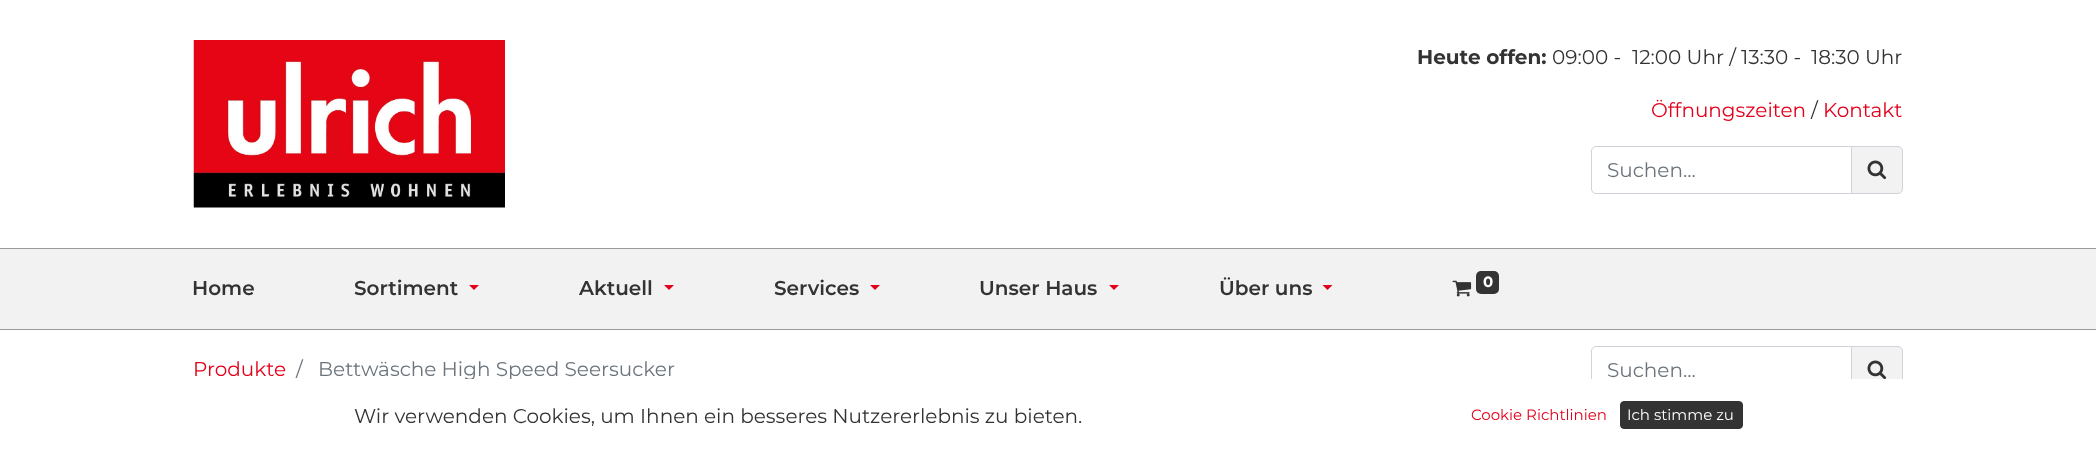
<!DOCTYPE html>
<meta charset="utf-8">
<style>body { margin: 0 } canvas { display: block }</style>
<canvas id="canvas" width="2096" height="454"></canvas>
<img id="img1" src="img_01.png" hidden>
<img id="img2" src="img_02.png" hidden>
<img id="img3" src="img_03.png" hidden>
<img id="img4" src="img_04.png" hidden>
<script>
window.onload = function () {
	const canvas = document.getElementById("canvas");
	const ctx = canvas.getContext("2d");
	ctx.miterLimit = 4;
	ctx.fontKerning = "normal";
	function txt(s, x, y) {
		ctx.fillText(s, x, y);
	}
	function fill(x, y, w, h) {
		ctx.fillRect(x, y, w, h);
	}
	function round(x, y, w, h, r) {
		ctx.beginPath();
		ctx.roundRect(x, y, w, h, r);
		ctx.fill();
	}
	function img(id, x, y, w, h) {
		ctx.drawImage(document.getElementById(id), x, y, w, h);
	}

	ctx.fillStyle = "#FFFFFF";
	fill(0, 0, 2096, 454);
	img("img1", 193, 40, 312, 168);
	ctx.beginPath();
	ctx.roundRect(1591.5, 146.5, 261, 47, [4.5, 0, 0, 4.5]);
	ctx.strokeStyle = "#CED4DA";
	ctx.stroke();
	ctx.fillStyle = "#F2F2F2";
	ctx.beginPath();
	ctx.roundRect(1851.5, 146.5, 51, 47, [0, 4.5, 4.5, 0]);
	ctx.fill();
	ctx.stroke();
	img("img2", 1867, 160, 20, 20);
	fill(0, 249, 2096, 80);
	ctx.fillStyle = "#999999";
	fill(0, 248, 2096, 1);
	fill(0, 329, 2096, 1);
	ctx.fillStyle = "#E3001B";
	ctx.beginPath();
	ctx.moveTo(469, 285);
	ctx.lineTo(479, 285);
	ctx.lineTo(474, 290);
	ctx.closePath();
	ctx.fill();
	ctx.beginPath();
	ctx.moveTo(664, 285);
	ctx.lineTo(674, 285);
	ctx.lineTo(669, 290);
	ctx.closePath();
	ctx.fill();
	ctx.beginPath();
	ctx.moveTo(870, 285);
	ctx.lineTo(880, 285);
	ctx.lineTo(875, 290);
	ctx.closePath();
	ctx.fill();
	ctx.beginPath();
	ctx.moveTo(1109, 285);
	ctx.lineTo(1119, 285);
	ctx.lineTo(1114, 290);
	ctx.closePath();
	ctx.fill();
	ctx.beginPath();
	ctx.moveTo(1322.5, 285);
	ctx.lineTo(1332.5, 285);
	ctx.lineTo(1327.5, 290);
	ctx.closePath();
	ctx.fill();
	img("img3", 1452, 280, 20, 17);
	ctx.fillStyle = "#333333";
	round(1476, 271, 23, 23, 5);
	ctx.beginPath();
	ctx.roundRect(1591.5, 346.5, 261, 47, [4.5, 0, 0, 4.5]);
	ctx.stroke();
	ctx.fillStyle = "#F2F2F2";
	ctx.beginPath();
	ctx.roundRect(1851.5, 346.5, 51, 47, [0, 4.5, 4.5, 0]);
	ctx.fill();
	ctx.stroke();
	img("img4", 1867, 360, 20, 19);
	ctx.fillStyle = "#333333";
	ctx.beginPath();
	ctx.roundRect(1620.5, 401.5, 122, 27, 3.5);
	ctx.fill();
	ctx.strokeStyle = "#333333";
	ctx.stroke();
	ctx.font = "bold 20px Montserrat";
	txt("Heute offen:", 1417, 64);
	ctx.font = "20px Montserrat";
	txt("09:00 -", 1552, 64);
	txt("12:00 Uhr / 13:30 -", 1632, 64);
	txt("18:30 Uhr", 1811, 64);
	ctx.fillStyle = "#E3001B";
	txt("Öffnungszeiten", 1651, 117);
	ctx.fillStyle = "#333333";
	txt("/", 1811, 117);
	ctx.fillStyle = "#E3001B";
	txt("Kontakt", 1823, 117);
	ctx.fillStyle = "#6C757D";
	txt("Suchen...", 1607, 177);
	ctx.font = "600 20px Montserrat";
	ctx.fillStyle = "#333333";
	txt("Home", 192, 295);
	txt("Sortiment", 354, 295);
	txt("Aktuell", 579, 295);
	txt("Services", 774, 295);
	txt("Unser Haus", 979, 295);
	txt("Über uns", 1219, 295);
	ctx.font = "bold 15px Montserrat";
	ctx.fillStyle = "#FFFFFF";
	txt("0", 1483, 287);
	ctx.font = "20px Montserrat";
	ctx.fillStyle = "#E3001B";
	txt("Produkte", 193, 376);
	ctx.fillStyle = "#6C757D";
	txt("/", 296, 376);
	txt("Bettwäsche High Speed Seersucker", 318, 376);
	txt("Suchen...", 1607, 377);
	ctx.fillStyle = "#FFFFFF";
	fill(466, 379, 1437, 15);
	ctx.fillStyle = "#333333";
	txt("Wir verwenden Cookies, um Ihnen ein besseres Nutzererlebnis zu bieten.", 354, 423);
	ctx.font = "15px Montserrat";
	ctx.fillStyle = "#E3001B";
	txt("Cookie Richtlinien", 1471, 420);
	ctx.fillStyle = "#FFFFFF";
	txt("Ich stimme zu", 1627, 420);
};
</script>
